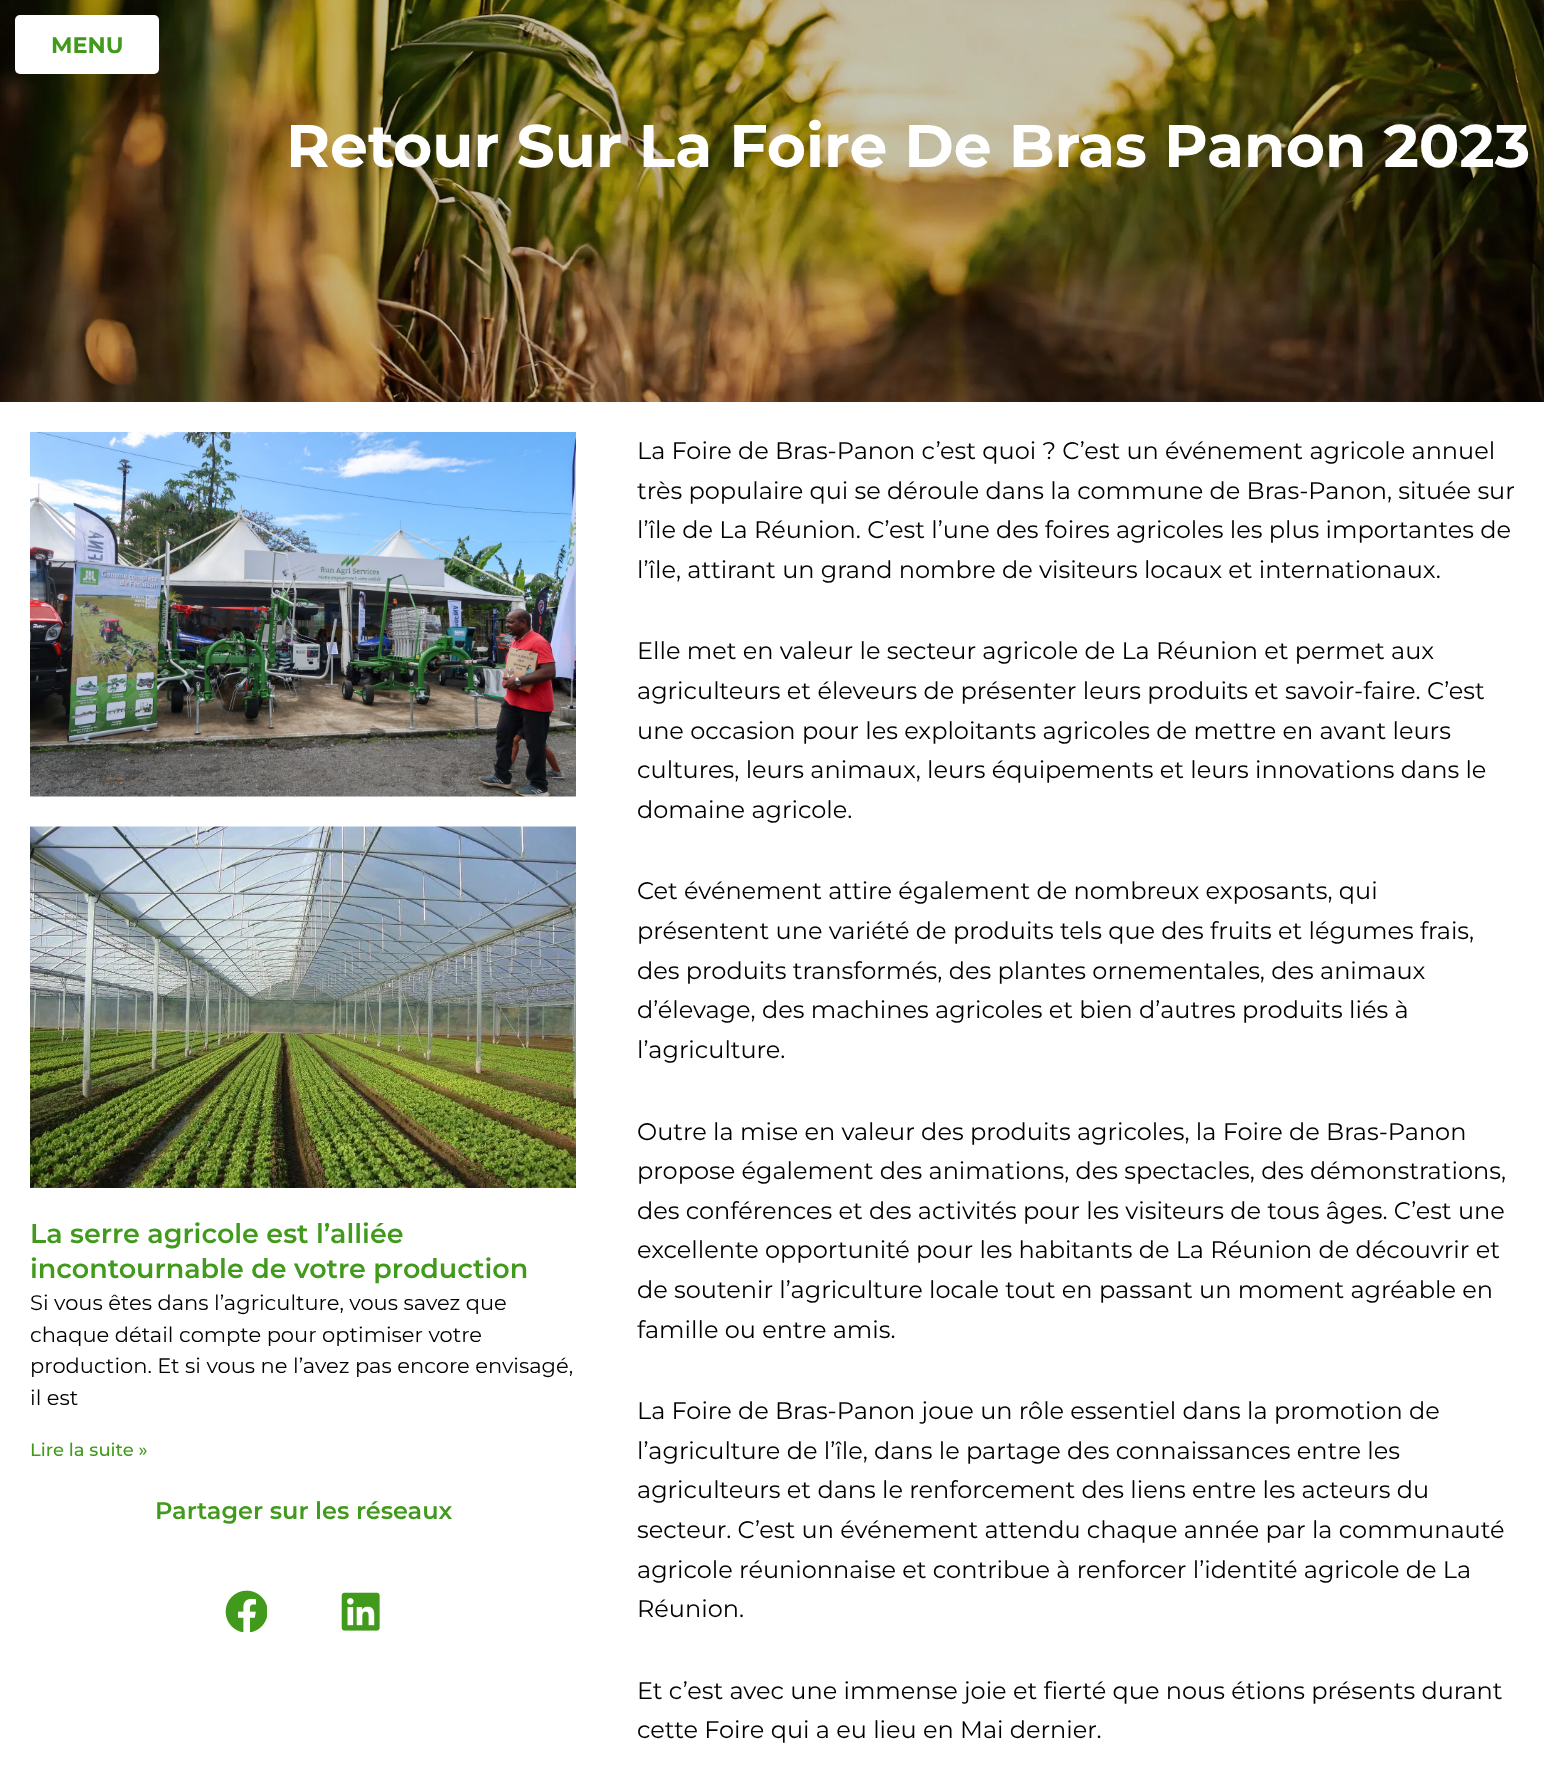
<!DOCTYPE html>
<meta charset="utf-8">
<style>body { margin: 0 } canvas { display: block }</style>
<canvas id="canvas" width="1544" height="1777"></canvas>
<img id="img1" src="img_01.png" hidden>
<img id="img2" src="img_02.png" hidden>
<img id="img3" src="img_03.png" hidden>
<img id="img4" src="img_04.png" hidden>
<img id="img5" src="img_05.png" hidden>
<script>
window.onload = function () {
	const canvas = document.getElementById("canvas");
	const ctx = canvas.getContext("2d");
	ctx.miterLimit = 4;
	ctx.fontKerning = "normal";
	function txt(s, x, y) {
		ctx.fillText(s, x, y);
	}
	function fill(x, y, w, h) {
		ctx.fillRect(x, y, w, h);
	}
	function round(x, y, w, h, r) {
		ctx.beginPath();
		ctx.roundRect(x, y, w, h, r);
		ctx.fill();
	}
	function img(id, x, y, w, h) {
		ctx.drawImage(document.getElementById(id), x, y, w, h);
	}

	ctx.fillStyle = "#FFFFFF";
	fill(0, 0, 1544, 1777);
	img("img1", 0, 0, 1544, 402);
	round(15, 15, 144, 59, 5);
	img("img2", 30, 432, 546, 365);
	img("img3", 30, 826, 546, 362);
	img("img4", 225, 1590, 42, 42);
	img("img5", 341, 1592, 39, 39);
	ctx.font = "bold 22.5px Montserrat";
	ctx.fillStyle = "#419A1C";
	txt("MENU", 51, 53);
	ctx.font = "bold 60px Montserrat";
	ctx.fillStyle = "#FFFFFF";
	txt("Retour Sur La Foire De Bras Panon 2023", 286, 167);
	ctx.font = "600 27px Montserrat";
	ctx.fillStyle = "#419A1C";
	txt("La serre agricole est l’alliée", 30, 1243);
	txt("incontournable de votre production", 30, 1278);
	ctx.font = "21px Montserrat";
	ctx.fillStyle = "#000000";
	txt("Si vous êtes dans l’agriculture, vous savez que", 30, 1310);
	txt("chaque détail compte pour optimiser votre", 30, 1342);
	txt("production. Et si vous ne l’avez pas encore envisagé,", 30, 1373);
	txt("il est", 30, 1405);
	ctx.font = "500 18px Montserrat";
	ctx.fillStyle = "#419A1C";
	txt("Lire la suite »", 30, 1456);
	ctx.font = "600 24px Montserrat";
	txt("Partager sur les réseaux", 155, 1519);
	ctx.font = "24px Montserrat";
	ctx.fillStyle = "#000000";
	txt("La Foire de Bras-Panon c’est quoi ? C’est un événement agricole annuel", 637, 459);
	txt("très populaire qui se déroule dans la commune de Bras-Panon, située sur", 637, 499);
	txt("l’île de La Réunion. C’est l’une des foires agricoles les plus importantes de", 637, 538);
	txt("l’île, attirant un grand nombre de visiteurs locaux et internationaux.", 637, 578);
	txt("Elle met en valeur le secteur agricole de La Réunion et permet aux", 637, 659);
	txt("agriculteurs et éleveurs de présenter leurs produits et savoir-faire. C’est", 637, 699);
	txt("une occasion pour les exploitants agricoles de mettre en avant leurs", 637, 739);
	txt("cultures, leurs animaux, leurs équipements et leurs innovations dans le", 637, 778);
	txt("domaine agricole.", 637, 818);
	txt("Cet événement attire également de nombreux exposants, qui", 637, 899);
	txt("présentent une variété de produits tels que des fruits et légumes frais,", 637, 939);
	txt("des produits transformés, des plantes ornementales, des animaux", 637, 979);
	txt("d’élevage, des machines agricoles et bien d’autres produits liés à", 637, 1018);
	txt("l’agriculture.", 637, 1058);
	txt("Outre la mise en valeur des produits agricoles, la Foire de Bras-Panon", 637, 1140);
	txt("propose également des animations, des spectacles, des démonstrations,", 637, 1179);
	txt("des conférences et des activités pour les visiteurs de tous âges. C’est une", 637, 1219);
	txt("excellente opportunité pour les habitants de La Réunion de découvrir et", 637, 1258);
	txt("de soutenir l’agriculture locale tout en passant un moment agréable en", 637, 1298);
	txt("famille ou entre amis.", 637, 1338);
	txt("La Foire de Bras-Panon joue un rôle essentiel dans la promotion de", 637, 1419);
	txt("l’agriculture de l’île, dans le partage des connaissances entre les", 637, 1459);
	txt("agriculteurs et dans le renforcement des liens entre les acteurs du", 637, 1498);
	txt("secteur. C’est un événement attendu chaque année par la communauté", 637, 1538);
	txt("agricole réunionnaise et contribue à renforcer l’identité agricole de La", 637, 1578);
	txt("Réunion.", 637, 1617);
	txt("Et c’est avec une immense joie et fierté que nous étions présents durant", 637, 1699);
	txt("cette Foire qui a eu lieu en Mai dernier.", 637, 1738);
};
</script>
